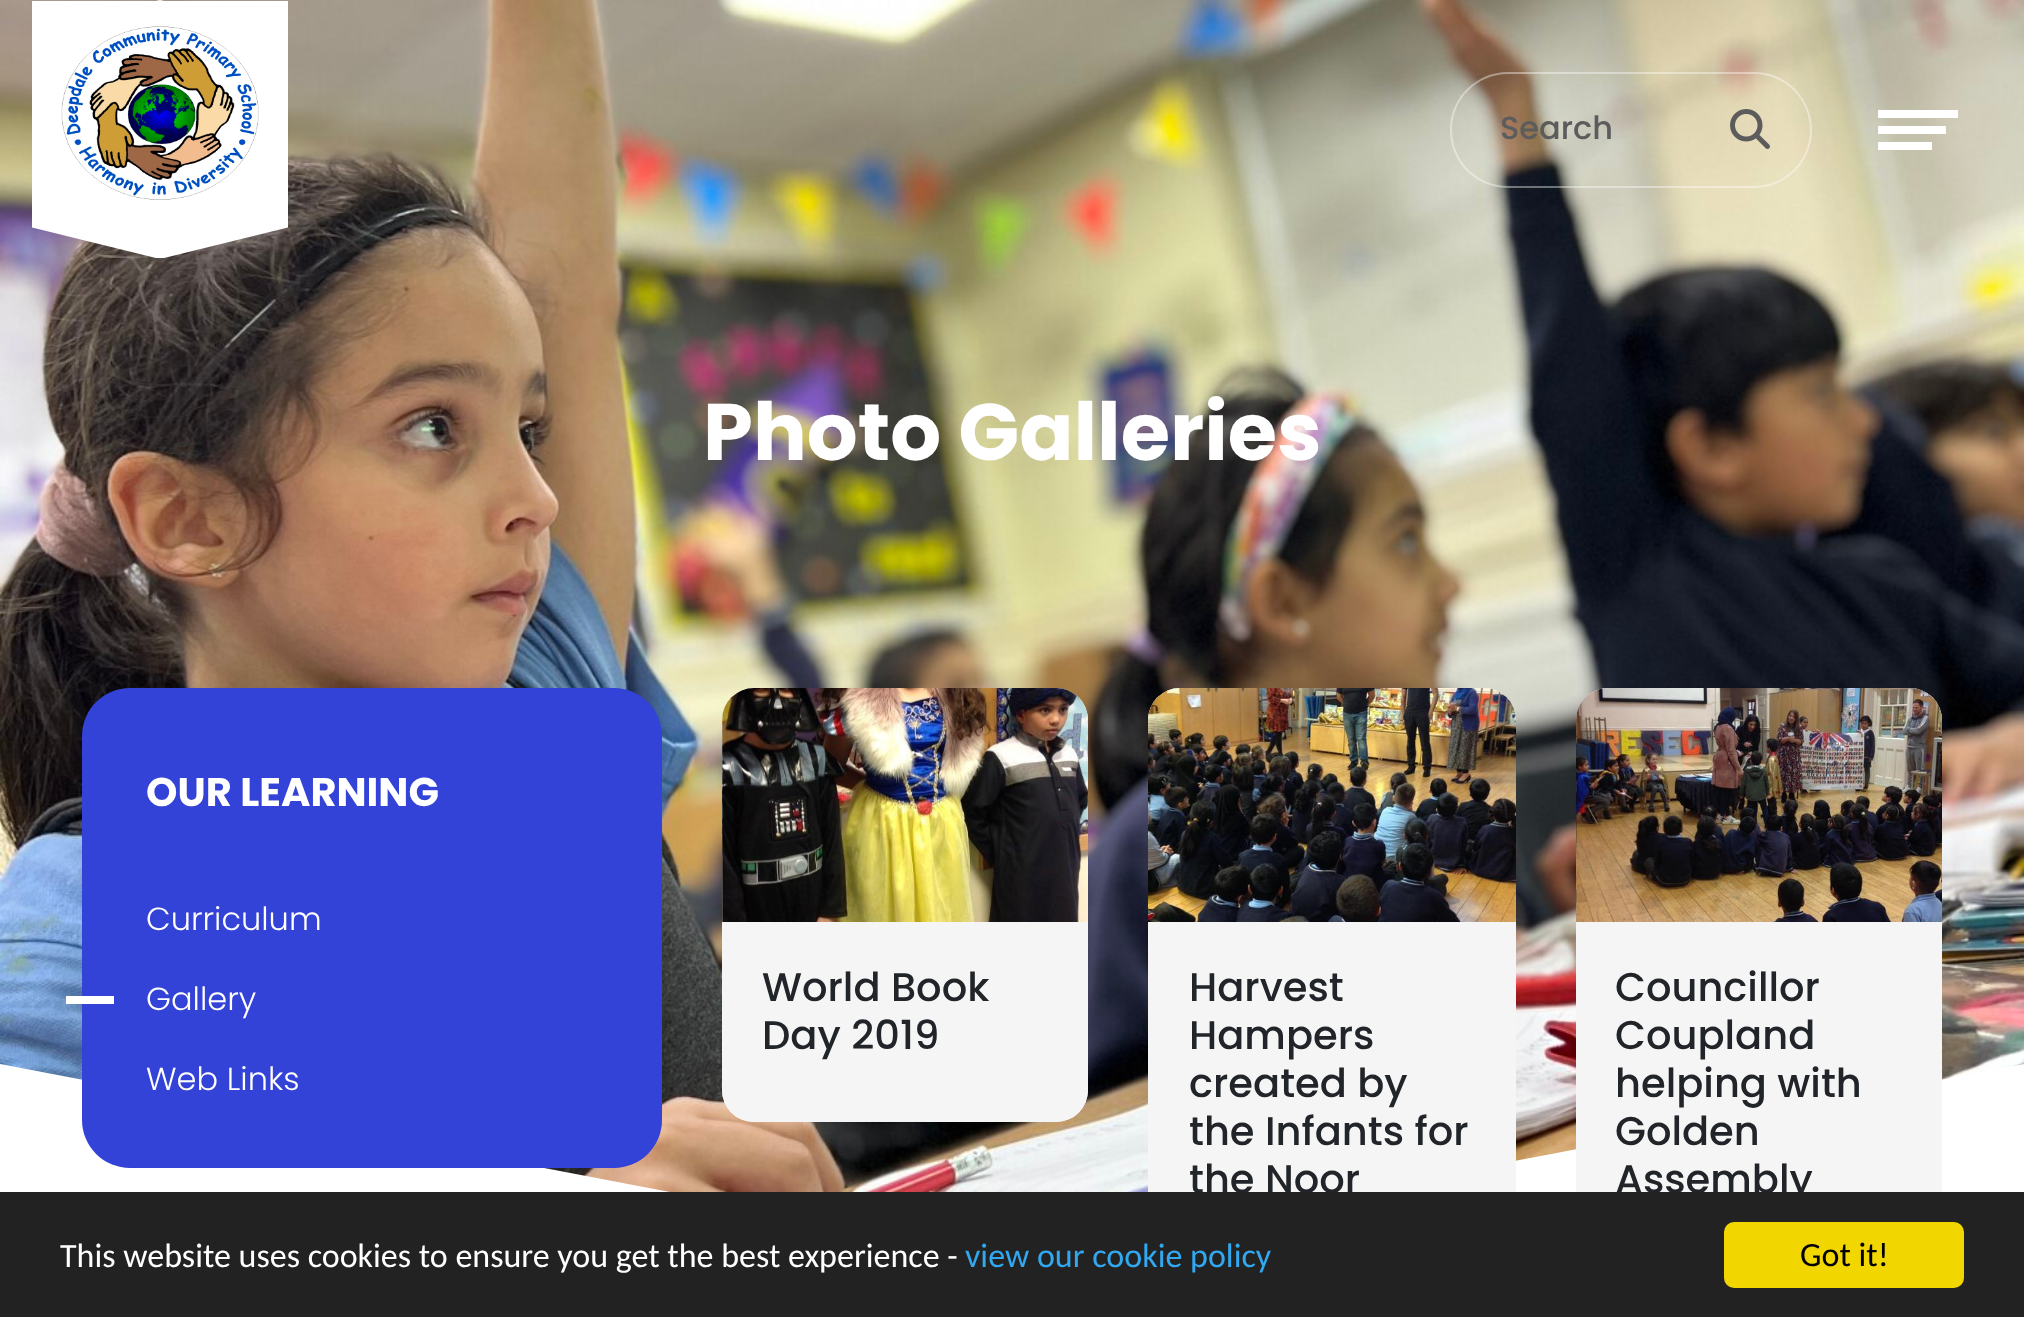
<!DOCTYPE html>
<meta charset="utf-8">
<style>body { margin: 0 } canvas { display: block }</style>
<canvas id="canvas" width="2024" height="1317"></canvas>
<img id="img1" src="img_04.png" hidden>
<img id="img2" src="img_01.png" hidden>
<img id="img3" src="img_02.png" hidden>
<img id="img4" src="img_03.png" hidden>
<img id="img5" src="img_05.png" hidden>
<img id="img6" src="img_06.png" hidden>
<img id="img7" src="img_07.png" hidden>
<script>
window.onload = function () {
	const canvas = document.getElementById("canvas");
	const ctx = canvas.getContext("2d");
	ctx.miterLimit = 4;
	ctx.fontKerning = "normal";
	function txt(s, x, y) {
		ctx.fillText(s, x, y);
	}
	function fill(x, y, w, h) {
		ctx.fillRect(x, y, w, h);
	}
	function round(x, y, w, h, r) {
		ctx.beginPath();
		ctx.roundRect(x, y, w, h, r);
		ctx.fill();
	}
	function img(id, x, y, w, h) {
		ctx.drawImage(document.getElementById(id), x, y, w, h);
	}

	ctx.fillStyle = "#FFFFFF";
	fill(0, 0, 2024, 1317);
	img("img1", 0, 0, 2024, 1192);
	img("img2", 32, 0, 256, 258);
	img("img3", 61, 26, 198, 174);
	ctx.fillStyle = "rgba(255, 255, 255, 0.4)";
	ctx.beginPath();
	ctx.moveTo(1508, 72);
	ctx.lineTo(1706, 72);
	ctx.lineTo(1706, 188);
	ctx.lineTo(1508, 188);
	ctx.bezierCurveTo(1476, 188, 1450, 162, 1450, 130);
	ctx.bezierCurveTo(1450, 98, 1476, 72, 1508, 72);
	ctx.closePath();
	ctx.moveTo(1508, 74);
	ctx.lineTo(1706, 74);
	ctx.lineTo(1706, 186);
	ctx.lineTo(1508, 186);
	ctx.bezierCurveTo(1477, 186, 1452, 161, 1452, 130);
	ctx.bezierCurveTo(1452, 99, 1477, 74, 1508, 74);
	ctx.closePath();
	ctx.fill("evenodd");
	ctx.beginPath();
	ctx.moveTo(1706, 72);
	ctx.lineTo(1754, 72);
	ctx.bezierCurveTo(1786, 72, 1812, 98, 1812, 130);
	ctx.bezierCurveTo(1812, 162, 1786, 188, 1754, 188);
	ctx.lineTo(1706, 188);
	ctx.closePath();
	ctx.moveTo(1706, 74);
	ctx.lineTo(1754, 74);
	ctx.bezierCurveTo(1785, 74, 1810, 99, 1810, 130);
	ctx.bezierCurveTo(1810, 161, 1785, 186, 1754, 186);
	ctx.lineTo(1706, 186);
	ctx.closePath();
	ctx.fill("evenodd");
	img("img4", 1730, 109, 40, 40);
	ctx.fillStyle = "#FFFFFF";
	fill(1878, 110, 80, 8);
	fill(1878, 126, 68, 8);
	fill(1878, 142, 54, 8);
	ctx.beginPath();
	ctx.moveTo(1010, 1257);
	ctx.lineTo(0, 1064);
	ctx.lineTo(0, 1266);
	ctx.lineTo(2024, 1266);
	ctx.lineTo(2024, 1064);
	ctx.closePath();
	ctx.fill();
	ctx.fillStyle = "#3443D7";
	round(82, 688, 580, 480, 48);
	ctx.fillStyle = "#FFFFFF";
	fill(66, 996, 48, 8);
	round(722, 688, 366, 434, 32);
	img("img5", 722, 688, 366, 234);
	ctx.fillStyle = "#F5F5F5";
	ctx.beginPath();
	ctx.roundRect(722, 922, 366, 200, [0, 0, 32, 32]);
	ctx.fill();
	ctx.fillStyle = "#FFFFFF";
	round(1148, 688, 368, 626, 32);
	img("img6", 1148, 688, 368, 234);
	ctx.fillStyle = "#F5F5F5";
	fill(1148, 922, 368, 270);
	ctx.fillStyle = "#FFFFFF";
	round(1576, 688, 366, 578, 32);
	img("img7", 1576, 688, 366, 234);
	ctx.fillStyle = "#F5F5F5";
	fill(1576, 922, 366, 270);
	ctx.font = "500 32px Poppins";
	ctx.fillStyle = "#5C5C5C";
	txt("Search", 1500, 139);
	ctx.font = "bold 80px Poppins";
	ctx.fillStyle = "#FFFFFF";
	txt("Photo Galleries", 703, 460);
	ctx.font = "bold 40px Poppins";
	txt("OUR LEARNING", 146, 806);
	ctx.font = "300 32px Poppins";
	txt("Curriculum", 146, 930);
	txt("Gallery", 146, 1010);
	txt("Web Links", 146, 1090);
	ctx.font = "500 40px Poppins";
	ctx.fillStyle = "#212529";
	txt("World Book", 762, 1001);
	txt("Day 2019", 762, 1049);
	txt("Harvest", 1189, 1001);
	txt("Hampers", 1189, 1049);
	txt("created by", 1189, 1097);
	txt("the Infants for", 1189, 1145);
	txt("the Noor", 1189, 1193);
	txt("Councillor", 1615, 1001);
	txt("Coupland", 1615, 1049);
	txt("helping with", 1615, 1097);
	txt("Golden", 1615, 1145);
	txt("Assembly", 1615, 1193);
	ctx.fillStyle = "#222222";
	fill(0, 1192, 2024, 125);
	ctx.font = "34px Carlito";
	ctx.fillStyle = "#FFFFFF";
	txt("This website uses cookies to ensure you get the best experience -", 60, 1267);
	ctx.fillStyle = "#31A8F0";
	txt("view our cookie policy", 965, 1267);
	ctx.fillStyle = "#F1D600";
	round(1724, 1222, 240, 66, 10);
	ctx.fillStyle = "#000000";
	txt("Got it!", 1800, 1266);
};
</script>
